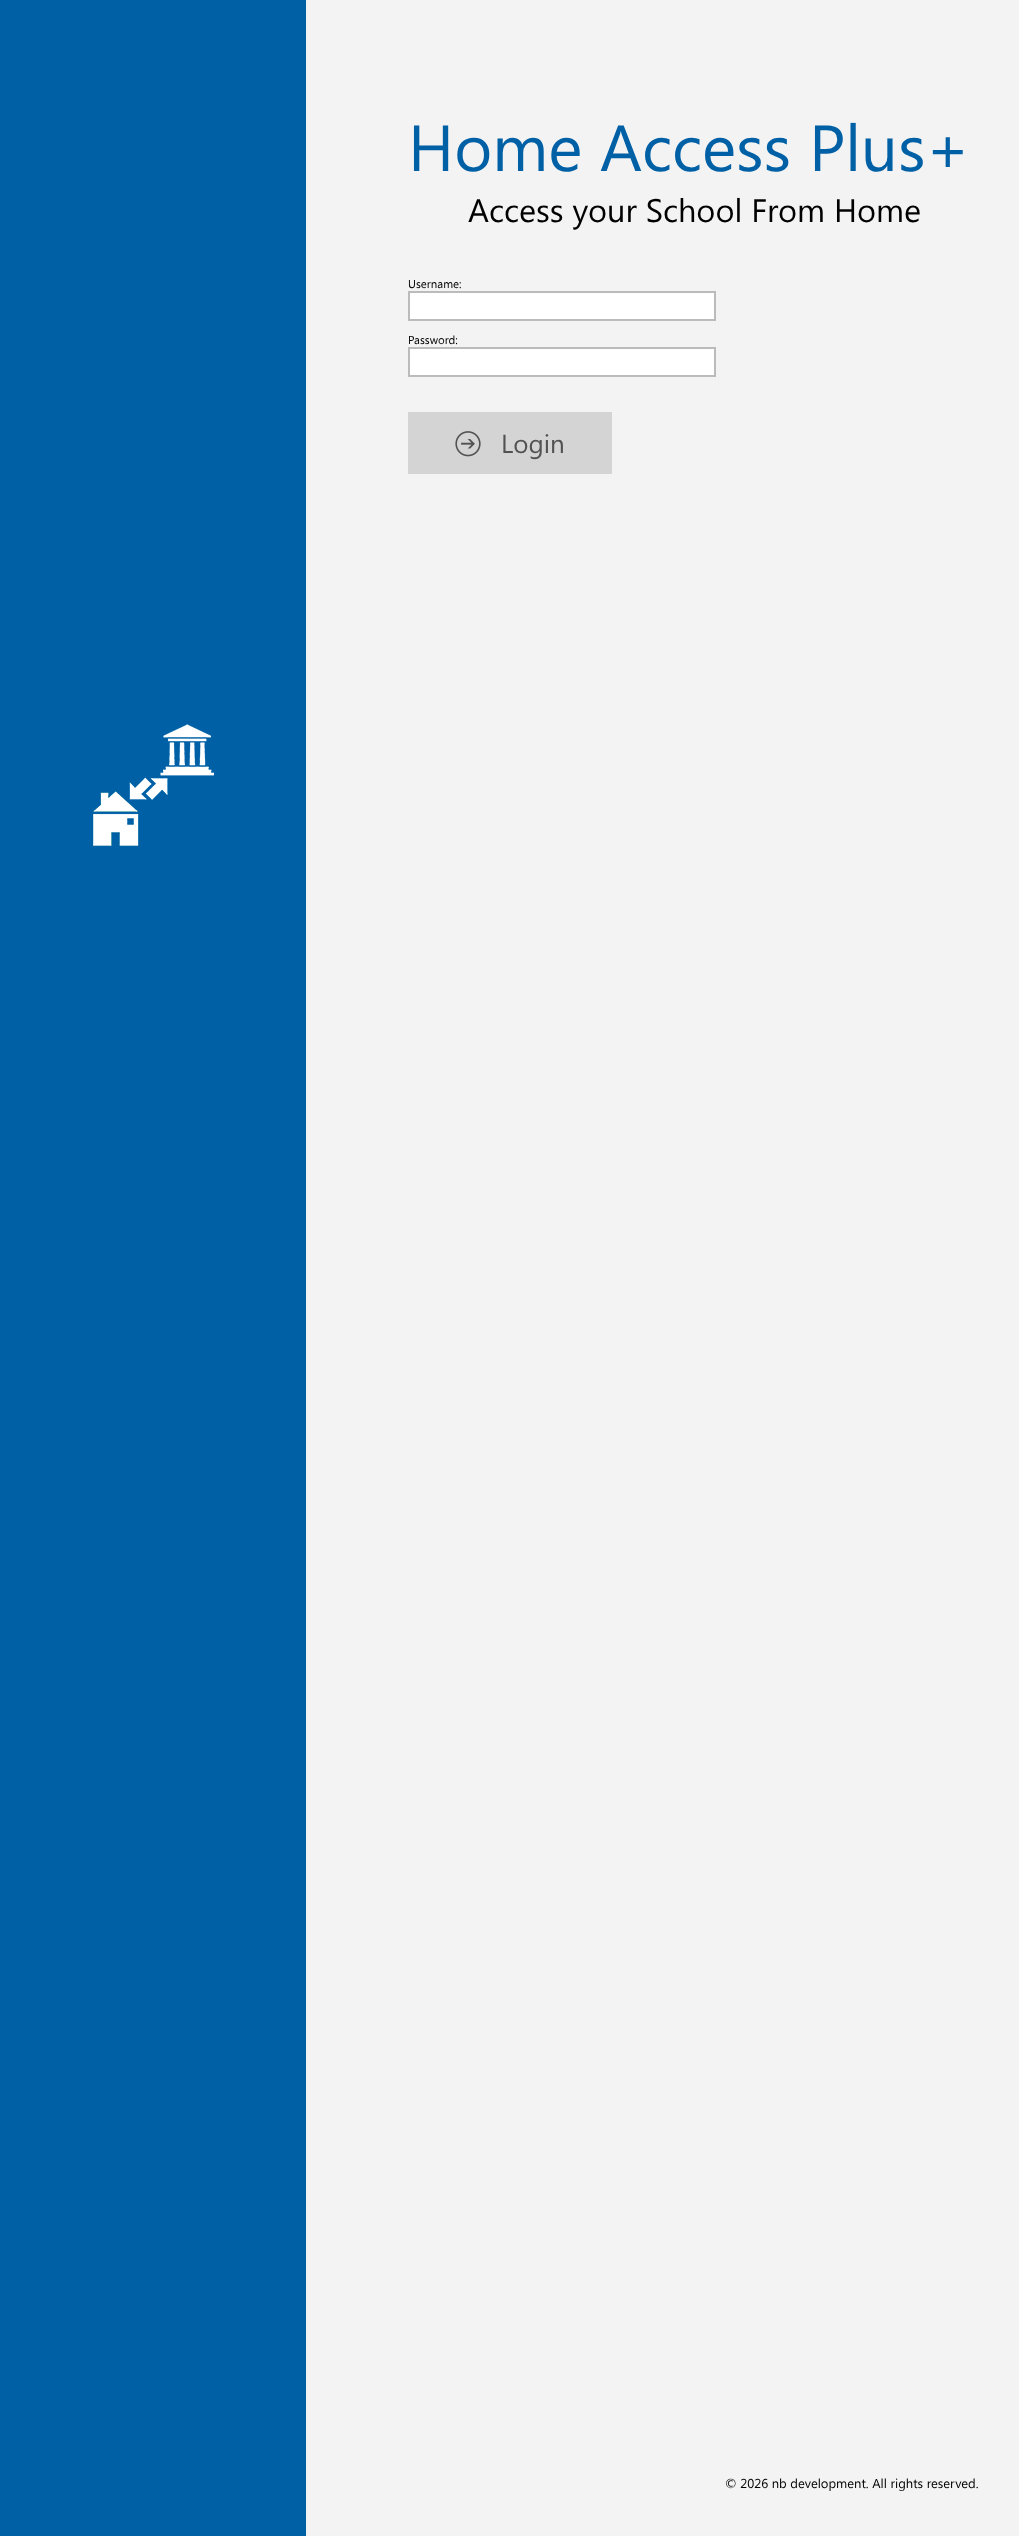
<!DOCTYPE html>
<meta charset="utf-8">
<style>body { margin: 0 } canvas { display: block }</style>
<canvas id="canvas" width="1019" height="2536"></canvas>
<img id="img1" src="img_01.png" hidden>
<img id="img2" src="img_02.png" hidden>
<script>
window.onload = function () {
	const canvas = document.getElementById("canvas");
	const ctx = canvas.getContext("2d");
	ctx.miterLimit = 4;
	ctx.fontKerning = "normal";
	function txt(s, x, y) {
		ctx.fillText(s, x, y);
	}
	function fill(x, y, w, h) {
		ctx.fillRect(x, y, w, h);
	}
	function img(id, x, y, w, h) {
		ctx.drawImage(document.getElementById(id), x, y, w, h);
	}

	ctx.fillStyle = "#F3F3F3";
	fill(0, 0, 1019, 2536);
	ctx.fillStyle = "#0060A6";
	fill(0, 0, 306, 2536);
	img("img1", 93, 724, 121, 122);
	ctx.fillStyle = "#FFFFFF";
	ctx.beginPath();
	ctx.rect(409, 292, 306, 28);
	ctx.fill();
	ctx.strokeStyle = "#BBBBBB";
	ctx.lineWidth = 2;
	ctx.stroke();
	ctx.beginPath();
	ctx.rect(409, 348, 306, 28);
	ctx.fill();
	ctx.stroke();
	ctx.fillStyle = "#D4D4D4";
	fill(408, 412, 204, 62);
	img("img2", 455, 431, 26, 26);
	ctx.font = "65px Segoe";
	ctx.fillStyle = "#0060A6";
	txt("Home Access Plus+", 408, 171);
	ctx.font = "32.5px Segoe";
	ctx.fillStyle = "#000000";
	txt("Access your School From Home", 468, 222);
	ctx.font = "11.5px Segoe";
	txt("Username:", 408, 288);
	txt("Password:", 408, 344);
	ctx.font = "26px Segoe";
	ctx.fillStyle = "#525252";
	txt("Login", 501, 453);
	ctx.font = "13px Segoe";
	ctx.fillStyle = "#000000";
	txt("© 2026 nb development. All rights reserved.", 725, 2488);
};
</script>
